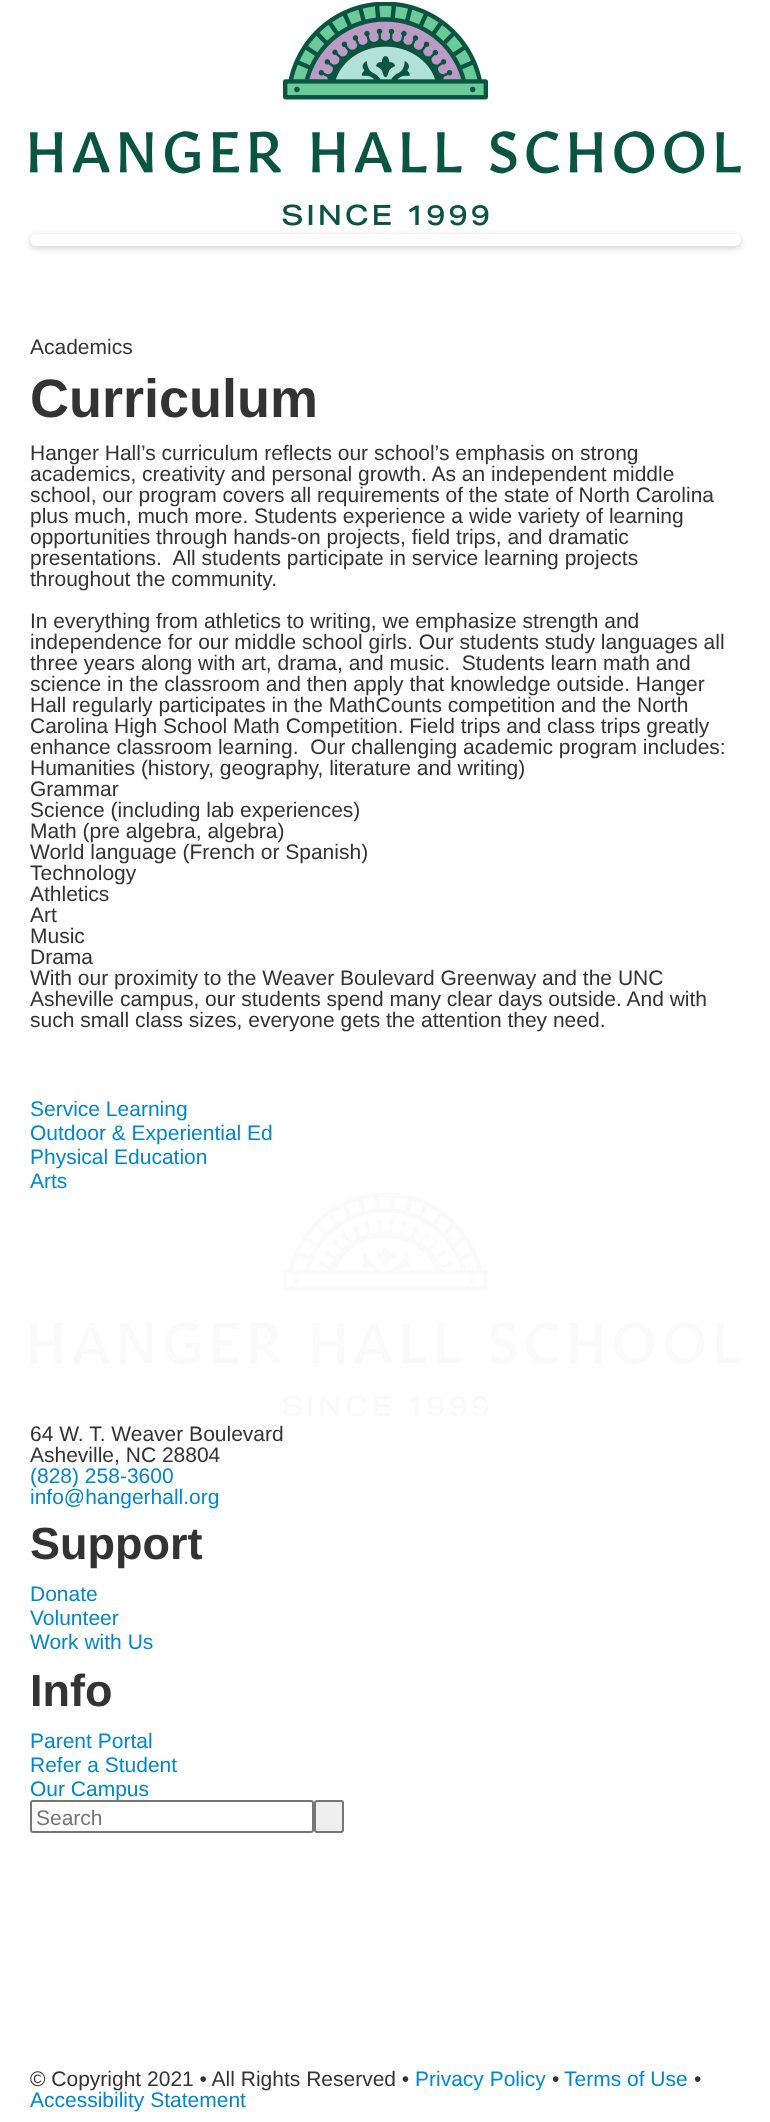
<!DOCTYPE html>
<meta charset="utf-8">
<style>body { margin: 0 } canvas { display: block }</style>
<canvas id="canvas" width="770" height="2122"></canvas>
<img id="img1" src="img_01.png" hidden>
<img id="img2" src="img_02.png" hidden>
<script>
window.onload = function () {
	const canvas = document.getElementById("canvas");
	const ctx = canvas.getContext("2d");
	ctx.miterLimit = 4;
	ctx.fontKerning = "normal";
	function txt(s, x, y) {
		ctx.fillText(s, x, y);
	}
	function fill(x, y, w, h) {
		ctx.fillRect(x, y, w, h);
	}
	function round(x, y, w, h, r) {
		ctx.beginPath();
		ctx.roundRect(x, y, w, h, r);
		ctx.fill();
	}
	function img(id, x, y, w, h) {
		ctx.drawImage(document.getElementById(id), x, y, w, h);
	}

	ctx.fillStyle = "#FFFFFF";
	fill(0, 0, 770, 2122);
	img("img1", 30, 2, 711, 224);
	ctx.fillStyle = "rgba(0, 0, 0, 0.2)";
	ctx.filter = "blur(3px)";
	ctx.beginPath();
	ctx.roundRect(30, 236, 711, 12, 6);
	ctx.fill();
	ctx.filter = "none";
	ctx.fillStyle = "#FFFFFF";
	round(30, 234, 711, 12, 6);
	img("img2", 30, 1193, 711, 223);
	ctx.fillStyle = "#EFEFEF";
	ctx.beginPath();
	ctx.roundRect(315, 1801, 28, 31, 2);
	ctx.fill();
	ctx.strokeStyle = "#767676";
	ctx.lineWidth = 2;
	ctx.stroke();
	ctx.font = "21px Liberation Sans";
	ctx.fillStyle = "#333333";
	txt("Academics", 30, 354);
	ctx.font = "bold 54px Liberation Sans";
	txt("Curriculum", 30, 417);
	ctx.font = "21px Liberation Sans";
	txt("Hanger Hall’s curriculum reflects our school’s emphasis on strong", 30, 460);
	txt("academics, creativity and personal growth. As an independent middle", 30, 481);
	txt("school, our program covers all requirements of the state of North Carolina", 30, 502);
	txt("plus much, much more. Students experience a wide variety of learning", 30, 523);
	txt("opportunities through hands-on projects, field trips, and dramatic", 30, 544);
	txt("presentations.  All students participate in service learning projects", 30, 565);
	txt("throughout the community.", 30, 586);
	txt("In everything from athletics to writing, we emphasize strength and", 30, 628);
	txt("independence for our middle school girls. Our students study languages all", 30, 649);
	txt("three years along with art, drama, and music.  Students learn math and", 30, 670);
	txt("science in the classroom and then apply that knowledge outside. Hanger", 30, 691);
	txt("Hall regularly participates in the MathCounts competition and the North", 30, 712);
	txt("Carolina High School Math Competition. Field trips and class trips greatly", 30, 733);
	txt("enhance classroom learning.  Our challenging academic program includes:", 30, 754);
	txt("Humanities (history, geography, literature and writing)", 30, 775);
	txt("Grammar", 30, 796);
	txt("Science (including lab experiences)", 30, 817);
	txt("Math (pre algebra, algebra)", 30, 838);
	txt("World language (French or Spanish)", 30, 859);
	txt("Technology", 30, 880);
	txt("Athletics", 30, 901);
	txt("Art", 30, 922);
	txt("Music", 30, 943);
	txt("Drama", 30, 964);
	txt("With our proximity to the Weaver Boulevard Greenway and the UNC", 30, 985);
	txt("Asheville campus, our students spend many clear days outside. And with", 30, 1006);
	txt("such small class sizes, everyone gets the attention they need.", 30, 1027);
	ctx.fillStyle = "#0088CC";
	txt("Service Learning", 30, 1116);
	txt("Outdoor & Experiential Ed", 30, 1140);
	txt("Physical Education", 30, 1164);
	txt("Arts", 30, 1188);
	ctx.fillStyle = "#333333";
	txt("64 W. T. Weaver Boulevard", 30, 1441);
	txt("Asheville, NC 28804", 30, 1462);
	ctx.fillStyle = "#0088CC";
	txt("(828) 258-3600", 30, 1483);
	txt("info@hangerhall.org", 30, 1504);
	ctx.font = "bold 45px Liberation Sans";
	ctx.fillStyle = "#333333";
	txt("Support", 30, 1559);
	ctx.font = "21px Liberation Sans";
	ctx.fillStyle = "#0088CC";
	txt("Donate", 30, 1601);
	txt("Volunteer", 30, 1625);
	txt("Work with Us", 30, 1649);
	ctx.font = "bold 45px Liberation Sans";
	ctx.fillStyle = "#333333";
	txt("Info", 30, 1706);
	ctx.font = "21px Liberation Sans";
	ctx.fillStyle = "#0088CC";
	txt("Parent Portal", 30, 1748);
	txt("Refer a Student", 30, 1772);
	txt("Our Campus", 30, 1796);
	ctx.fillStyle = "#FFFFFF";
	ctx.beginPath();
	ctx.roundRect(31, 1801, 282, 31, 2);
	ctx.fill();
	ctx.stroke();
	ctx.fillStyle = "#757575";
	txt("Search", 36, 1825);
	ctx.fillStyle = "#333333";
	txt("© Copyright 2021 • All Rights Reserved •", 30, 2086);
	ctx.fillStyle = "#0088CC";
	txt("Privacy Policy", 415, 2086);
	ctx.fillStyle = "#333333";
	txt("•", 552, 2086);
	ctx.fillStyle = "#0088CC";
	txt("Terms of Use", 564, 2086);
	ctx.fillStyle = "#333333";
	txt("•", 694, 2086);
	ctx.fillStyle = "#0088CC";
	txt("Accessibility Statement", 30, 2107);
};
</script>
